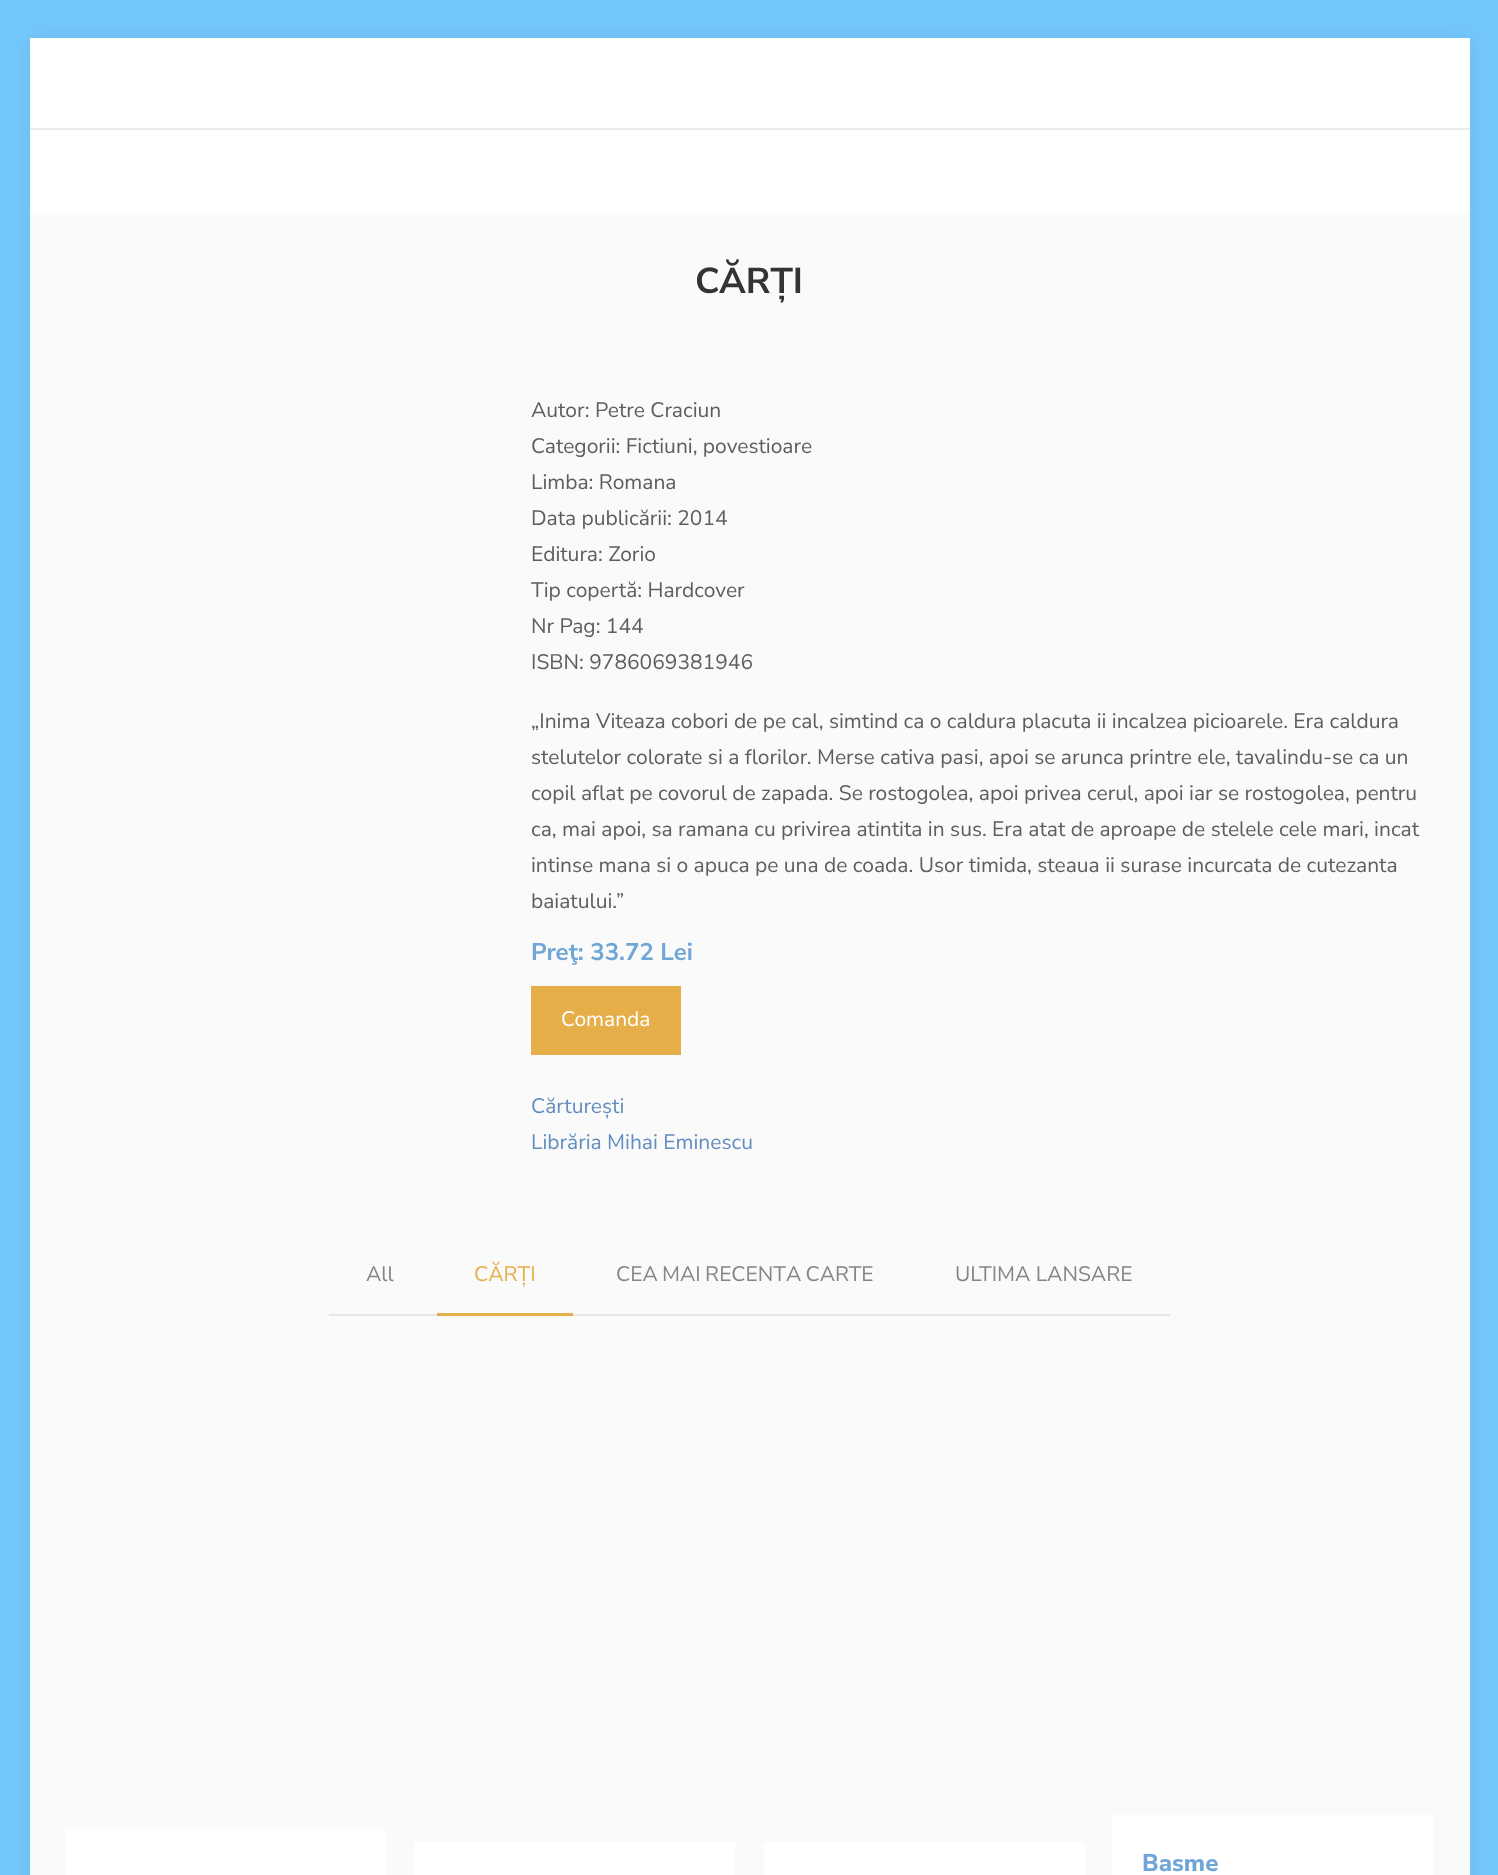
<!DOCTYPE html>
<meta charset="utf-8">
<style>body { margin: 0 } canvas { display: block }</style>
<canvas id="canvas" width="1498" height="1875"></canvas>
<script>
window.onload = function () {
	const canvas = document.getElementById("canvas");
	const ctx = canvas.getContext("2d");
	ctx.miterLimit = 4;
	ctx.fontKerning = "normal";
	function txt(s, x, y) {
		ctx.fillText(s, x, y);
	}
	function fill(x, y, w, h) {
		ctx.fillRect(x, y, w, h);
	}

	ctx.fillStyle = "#74C7FC";
	fill(0, 0, 1498, 1875);
	ctx.fillStyle = "rgba(0, 0, 0, 0.06)";
	ctx.filter = "blur(11px)";
	ctx.beginPath();
	ctx.rect(30, 38, 1440, 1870);
	ctx.fill();
	ctx.filter = "none";
	ctx.fillStyle = "#FAFAFA";
	fill(30, 213, 1440, 1662);
	ctx.fillStyle = "#FFFFFF";
	fill(30, 38, 1440, 175);
	ctx.fillStyle = "#EBEBEB";
	fill(30, 128, 1440, 2);
	ctx.fillStyle = "#E6AE48";
	fill(531, 986, 150, 69);
	ctx.fillStyle = "#E6E6E6";
	fill(329, 1314, 841, 2);
	ctx.fillStyle = "#E6AE48";
	fill(437, 1313, 136, 3);
	ctx.fillStyle = "#FFFFFF";
	fill(65, 1829, 321, 46);
	fill(414, 1842, 321, 33);
	fill(764, 1842, 321, 33);
	fill(1112, 1815, 321, 60);
	ctx.font = "bold 36px Nunito Sans";
	ctx.fillStyle = "#333333";
	txt("CĂRȚI", 695, 293);
	ctx.font = "21px Nunito Sans";
	ctx.fillStyle = "#5E5E5E";
	txt("Autor: Petre Craciun", 531, 417);
	txt("Categorii: Fictiuni, povestioare", 531, 453);
	txt("Limba: Romana", 531, 489);
	txt("Data publicării: 2014", 531, 525);
	txt("Editura: Zorio", 531, 561);
	txt("Tip copertă: Hardcover", 531, 597);
	txt("Nr Pag: 144", 531, 633);
	txt("ISBN: 9786069381946", 531, 669);
	txt("„Inima Viteaza cobori de pe cal, simtind ca o caldura placuta ii incalzea picioarele. Era caldura", 531, 728);
	txt("stelutelor colorate si a florilor. Merse cativa pasi, apoi se arunca printre ele, tavalindu-se ca un", 531, 764);
	txt("copil aflat pe covorul de zapada. Se rostogolea, apoi privea cerul, apoi iar se rostogolea, pentru", 531, 800);
	txt("ca, mai apoi, sa ramana cu privirea atintita in sus. Era atat de aproape de stelele cele mari, incat", 531, 836);
	txt("intinse mana si o apuca pe una de coada. Usor timida, steaua ii surase incurcata de cutezanta", 531, 872);
	txt("baiatului.”", 531, 908);
	ctx.font = "bold 24px Nunito Sans";
	ctx.fillStyle = "#70A6D7";
	txt("Preţ: 33.72 Lei", 531, 960);
	ctx.font = "21px Nunito Sans";
	ctx.fillStyle = "#FFFFFF";
	txt("Comanda", 561, 1026);
	ctx.fillStyle = "#628DBE";
	txt("Cărturești", 531, 1113);
	txt("Librăria Mihai Eminescu", 531, 1149);
	ctx.fillStyle = "#858585";
	txt("All", 366, 1281);
	ctx.fillStyle = "#E6AE48";
	txt("CĂRȚI", 474, 1281);
	ctx.wordSpacing = "-1px";
	ctx.fillStyle = "#858585";
	txt("CEA MAI RECENTA CARTE", 616, 1281);
	ctx.wordSpacing = "0px";
	txt("ULTIMA LANSARE", 955, 1281);
	ctx.font = "800 24px Nunito Sans";
	ctx.fillStyle = "#70A6D7";
	txt("Basme", 1142, 1871);
};
</script>
